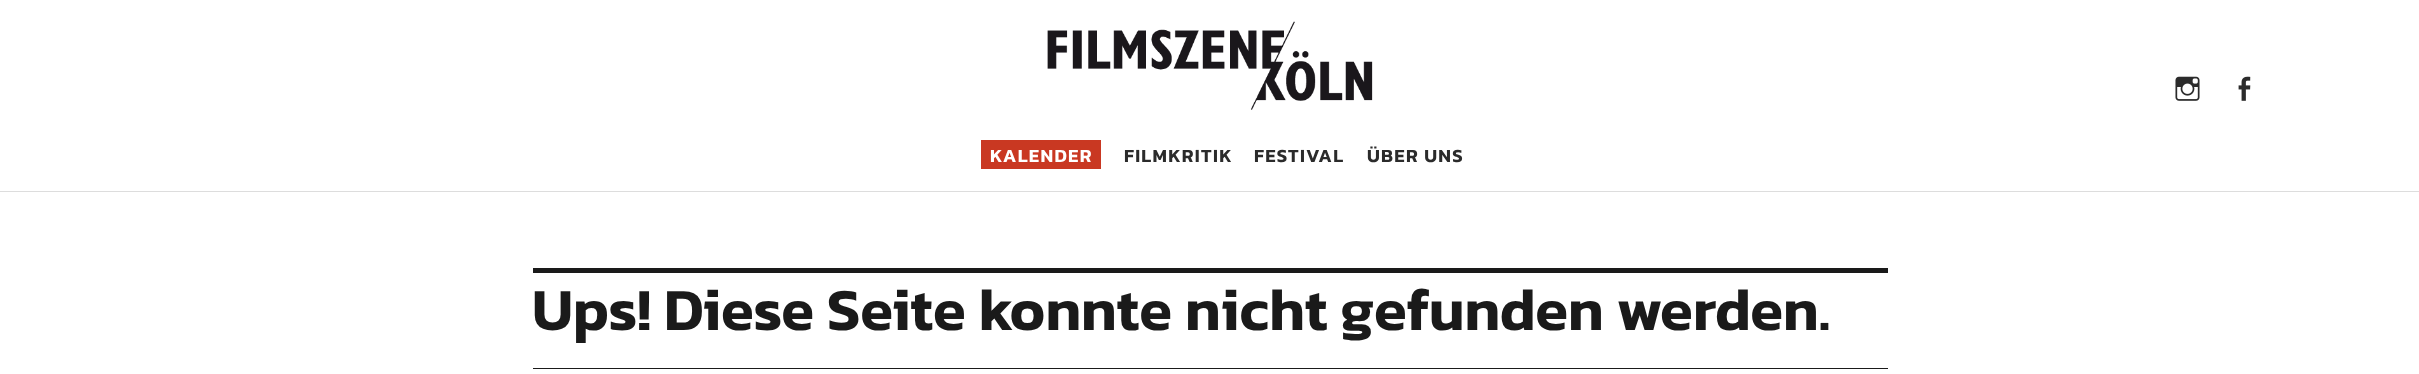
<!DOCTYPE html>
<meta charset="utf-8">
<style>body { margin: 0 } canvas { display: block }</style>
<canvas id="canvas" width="2419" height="374"></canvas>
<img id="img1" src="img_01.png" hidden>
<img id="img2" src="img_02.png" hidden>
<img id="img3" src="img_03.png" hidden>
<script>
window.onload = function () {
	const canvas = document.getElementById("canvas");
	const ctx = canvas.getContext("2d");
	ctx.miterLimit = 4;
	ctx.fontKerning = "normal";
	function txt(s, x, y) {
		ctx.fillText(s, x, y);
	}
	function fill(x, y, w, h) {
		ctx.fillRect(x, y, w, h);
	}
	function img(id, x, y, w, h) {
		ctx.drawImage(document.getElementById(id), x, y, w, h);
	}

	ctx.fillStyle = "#FFFFFF";
	fill(0, 0, 2419, 374);
	ctx.fillStyle = "#DDDDDD";
	fill(0, 191, 2419, 1);
	img("img1", 1047, 21, 326, 89);
	img("img2", 2175, 76, 25, 25);
	img("img3", 2238, 76, 13, 25);
	ctx.fillStyle = "#C93822";
	fill(981, 140, 120, 29);
	ctx.fillStyle = "#1A1A1A";
	fill(533, 268, 1355, 5);
	fill(533, 368, 1355, 1);
	ctx.letterSpacing = "1.25px";
	ctx.font = "600 18.75px Kanit";
	ctx.fillStyle = "#FFFFFF";
	txt("KALENDER", 990, 162);
	ctx.fillStyle = "#2B2B2B";
	txt("FILMKRITIK", 1124, 162);
	txt("FESTIVAL", 1254, 162);
	txt("ÜBER UNS", 1367, 162);
	ctx.letterSpacing = "0px";
	ctx.font = "600 60px Kanit";
	ctx.fillStyle = "#1A1A1A";
	txt("Ups! Diese Seite konnte nicht gefunden werden.", 532, 330);
};
</script>
